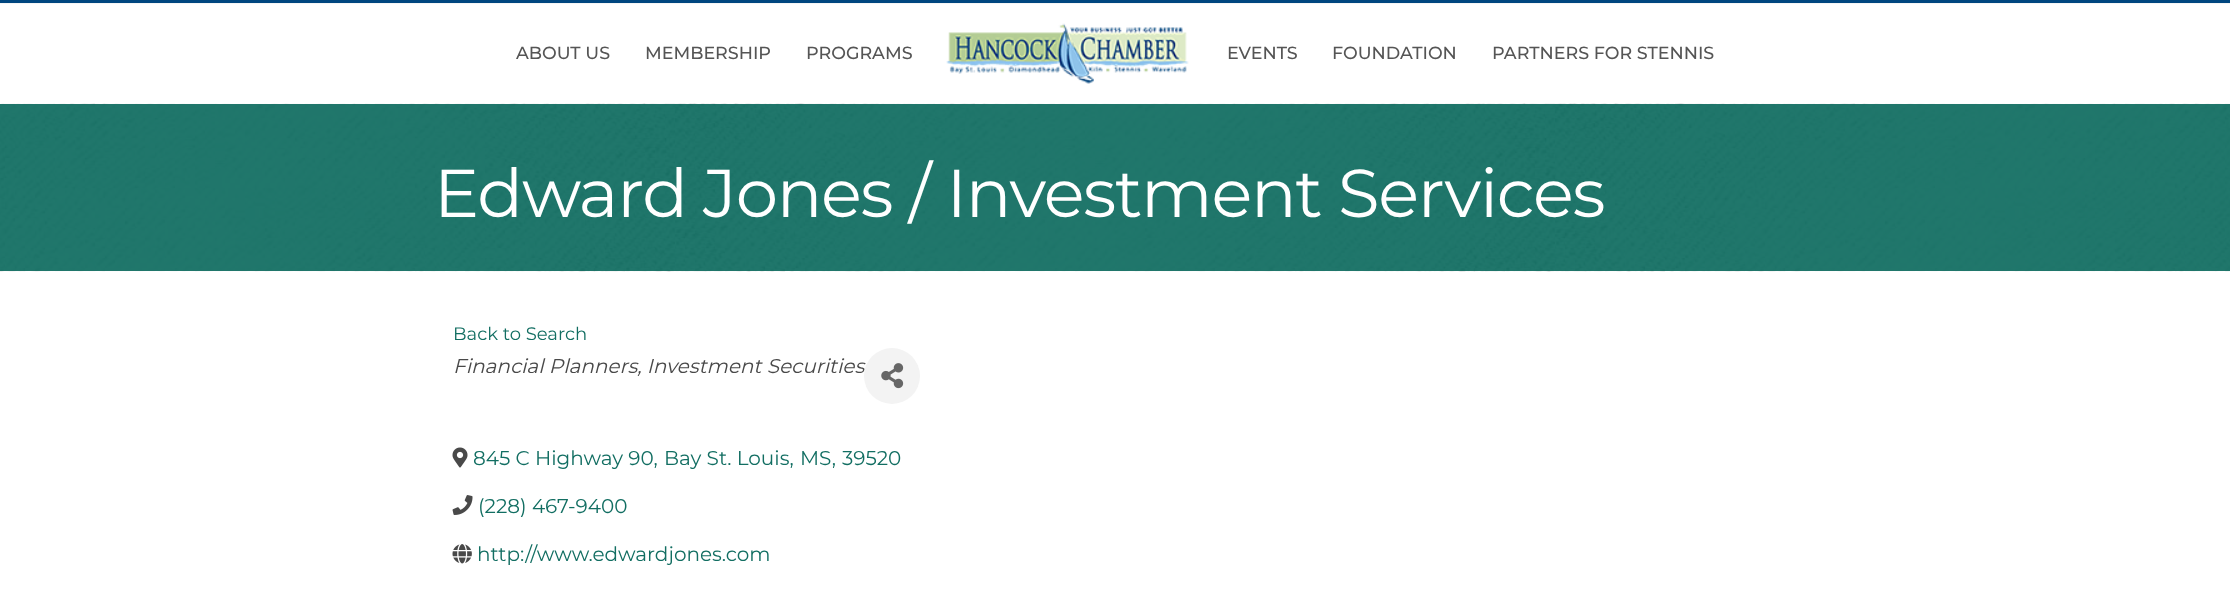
<!DOCTYPE html>
<meta charset="utf-8">
<style>body { margin: 0 } canvas { display: block }</style>
<canvas id="canvas" width="2230" height="604"></canvas>
<img id="img1" src="img_01.png" hidden>
<img id="img2" src="img_02.png" hidden>
<img id="img3" src="img_04.png" hidden>
<img id="img4" src="img_05.png" hidden>
<img id="img5" src="img_06.png" hidden>
<img id="img6" src="img_03.png" hidden>
<script>
window.onload = function () {
	const canvas = document.getElementById("canvas");
	const ctx = canvas.getContext("2d");
	ctx.miterLimit = 4;
	ctx.fontKerning = "normal";
	function txt(s, x, y) {
		ctx.fillText(s, x, y);
	}
	function fill(x, y, w, h) {
		ctx.fillRect(x, y, w, h);
	}
	function img(id, x, y, w, h) {
		ctx.drawImage(document.getElementById(id), x, y, w, h);
	}

	ctx.fillStyle = "#FFFFFF";
	fill(0, 0, 2230, 604);
	ctx.fillStyle = "#00467F";
	fill(0, 0, 2230, 3);
	ctx.fillStyle = "#F5F5F5";
	fill(0, 3, 2230, 1);
	img("img1", 946, 23, 243, 61);
	img("img2", 0, 103, 2230, 169);
	img("img3", 452, 447, 16, 21);
	img("img4", 452, 495, 21, 20);
	img("img5", 452, 544, 20, 20);
	ctx.font = "500 17.5px Montserrat";
	ctx.fillStyle = "#555555";
	txt("ABOUT US", 516, 59);
	txt("MEMBERSHIP", 645, 59);
	txt("PROGRAMS", 806, 59);
	txt("EVENTS", 1227, 59);
	txt("FOUNDATION", 1332, 59);
	txt("PARTNERS FOR STENNIS", 1492, 59);
	ctx.letterSpacing = "-1.25px";
	ctx.font = "67.5px Montserrat";
	ctx.fillStyle = "#FFFFFF";
	txt("Edward Jones / Investment Services", 434, 217);
	ctx.letterSpacing = "0px";
	ctx.font = "18px Montserrat";
	ctx.fillStyle = "#126E62";
	txt("Back to Search", 453, 340);
	ctx.font = "italic 20px Montserrat";
	ctx.fillStyle = "#494949";
	txt("Financial Planners, Investment Securities", 453, 373);
	ctx.fillStyle = "#F3F3F3";
	ctx.beginPath();
	ctx.arc(892, 376, 28, 0, Math.PI * 2);
	ctx.fill();
	img("img6", 881, 363, 23, 26);
	ctx.font = "20px Montserrat";
	ctx.fillStyle = "#126E62";
	txt("845 C Highway 90,", 473, 465);
	txt("Bay St. Louis,", 664, 465);
	txt("MS,", 800, 465);
	txt("39520", 842, 465);
	txt("(228) 467-9400", 478, 513);
	txt("http://www.edwardjones.com", 477, 561);
};
</script>
